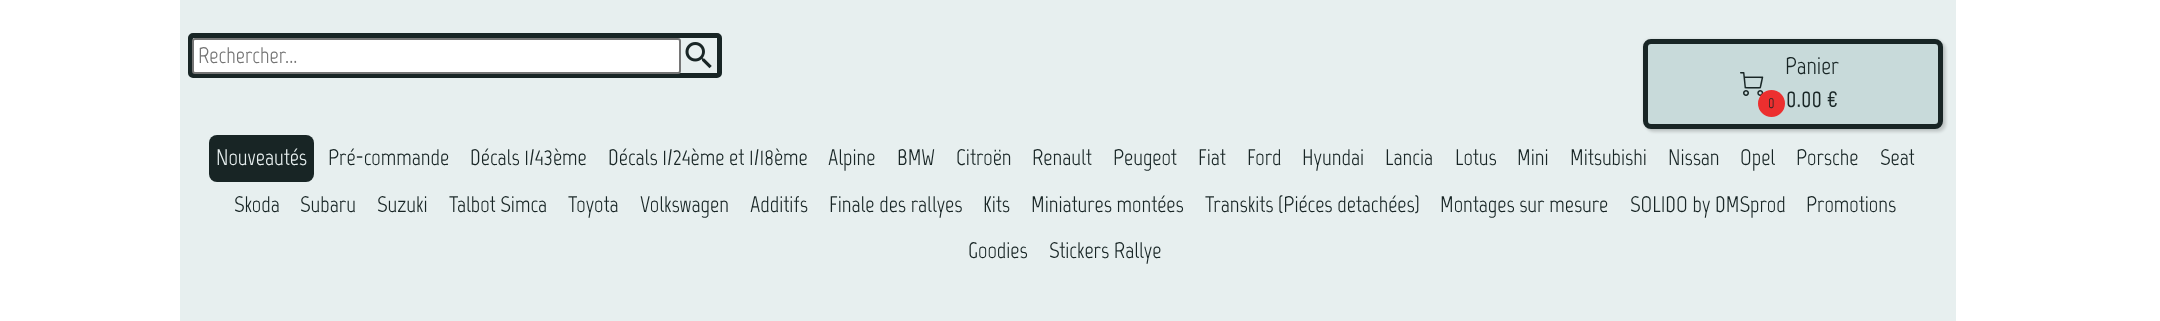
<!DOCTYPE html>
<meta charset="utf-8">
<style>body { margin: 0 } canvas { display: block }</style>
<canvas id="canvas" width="2160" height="321"></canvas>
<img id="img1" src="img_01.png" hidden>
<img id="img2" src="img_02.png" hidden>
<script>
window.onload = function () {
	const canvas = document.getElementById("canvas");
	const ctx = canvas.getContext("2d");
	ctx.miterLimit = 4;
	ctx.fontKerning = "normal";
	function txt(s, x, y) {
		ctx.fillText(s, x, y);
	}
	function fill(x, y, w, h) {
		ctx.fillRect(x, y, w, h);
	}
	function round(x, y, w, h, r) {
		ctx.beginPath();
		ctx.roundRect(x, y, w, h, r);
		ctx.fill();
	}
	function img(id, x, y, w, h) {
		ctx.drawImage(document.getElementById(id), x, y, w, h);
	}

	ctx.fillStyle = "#FFFFFF";
	fill(0, 0, 2160, 321);
	ctx.fillStyle = "#E7EFEF";
	fill(180, 0, 1776, 321);
	ctx.beginPath();
	ctx.roundRect(190.5, 35.5, 529, 40, 2.5);
	ctx.strokeStyle = "#182525";
	ctx.lineWidth = 5;
	ctx.stroke();
	ctx.fillStyle = "#FFFFFF";
	ctx.beginPath();
	ctx.roundRect(193, 39, 487, 34, 2);
	ctx.fill();
	ctx.strokeStyle = "#767676";
	ctx.lineWidth = 2;
	ctx.stroke();
	img("img1", 685, 42, 27, 27);
	ctx.fillStyle = "rgba(0, 0, 0, 0.15)";
	ctx.filter = "blur(1.5px)";
	ctx.beginPath();
	ctx.roundRect(1646, 42, 300, 90, 8);
	ctx.fill();
	ctx.filter = "none";
	ctx.fillStyle = "rgba(0, 0, 0, 0.1)";
	ctx.filter = "blur(1.5px)";
	ctx.beginPath();
	ctx.roundRect(1643, 39, 300, 90, 8);
	ctx.fill();
	ctx.filter = "none";
	ctx.fillStyle = "#C8DADA";
	ctx.beginPath();
	ctx.roundRect(1645.5, 41.5, 295, 85, 5.5);
	ctx.fill();
	ctx.strokeStyle = "#182525";
	ctx.lineWidth = 5;
	ctx.stroke();
	img("img2", 1740, 72, 24, 24);
	ctx.fillStyle = "#EC2F2F";
	ctx.beginPath();
	ctx.arc(1771.5, 103.5, 13.5, 0, Math.PI * 2);
	ctx.fill();
	ctx.fillStyle = "#182525";
	round(209, 135, 105, 47, 8);
	ctx.font = "22.5px Marvel";
	ctx.fillStyle = "#757575";
	txt("Rechercher...", 198, 63);
	ctx.font = "15px Marvel";
	ctx.fillStyle = "#182525";
	txt("0", 1768, 108);
	ctx.font = "24px Marvel";
	txt("Panier", 1785, 74);
	ctx.font = "bold 24px Marvel";
	txt("0.00 €", 1786, 107);
	ctx.font = "22.5px Marvel";
	ctx.fillStyle = "#E7EFEF";
	txt("Nouveautés", 216, 165);
	ctx.fillStyle = "#182525";
	txt("Pré-commande", 328, 165);
	txt("Décals 1/43ème", 470, 165);
	txt("Décals 1/24ème et 1/18ème", 608, 165);
	txt("Alpine", 828, 165);
	txt("BMW", 897, 165);
	txt("Citroën", 956, 165);
	txt("Renault", 1032, 165);
	txt("Peugeot", 1113, 165);
	txt("Fiat", 1198, 165);
	txt("Ford", 1247, 165);
	txt("Hyundai", 1302, 165);
	txt("Lancia", 1385, 165);
	txt("Lotus", 1455, 165);
	txt("Mini", 1517, 165);
	txt("Mitsubishi", 1570, 165);
	txt("Nissan", 1668, 165);
	txt("Opel", 1740, 165);
	txt("Porsche", 1796, 165);
	txt("Seat", 1880, 165);
	txt("Skoda", 234, 212);
	txt("Subaru", 300, 212);
	txt("Suzuki", 377, 212);
	txt("Talbot Simca", 449, 212);
	txt("Toyota", 568, 212);
	txt("Volkswagen", 640, 212);
	txt("Additifs", 750, 212);
	txt("Finale des rallyes", 829, 212);
	txt("Kits", 983, 212);
	txt("Miniatures montées", 1031, 212);
	txt("Transkits (Piéces detachées)", 1205, 212);
	txt("Montages sur mesure", 1440, 212);
	txt("SOLIDO by DMSprod", 1630, 212);
	txt("Promotions", 1806, 212);
	txt("Goodies", 968, 258);
	txt("Stickers Rallye", 1049, 258);
};
</script>
